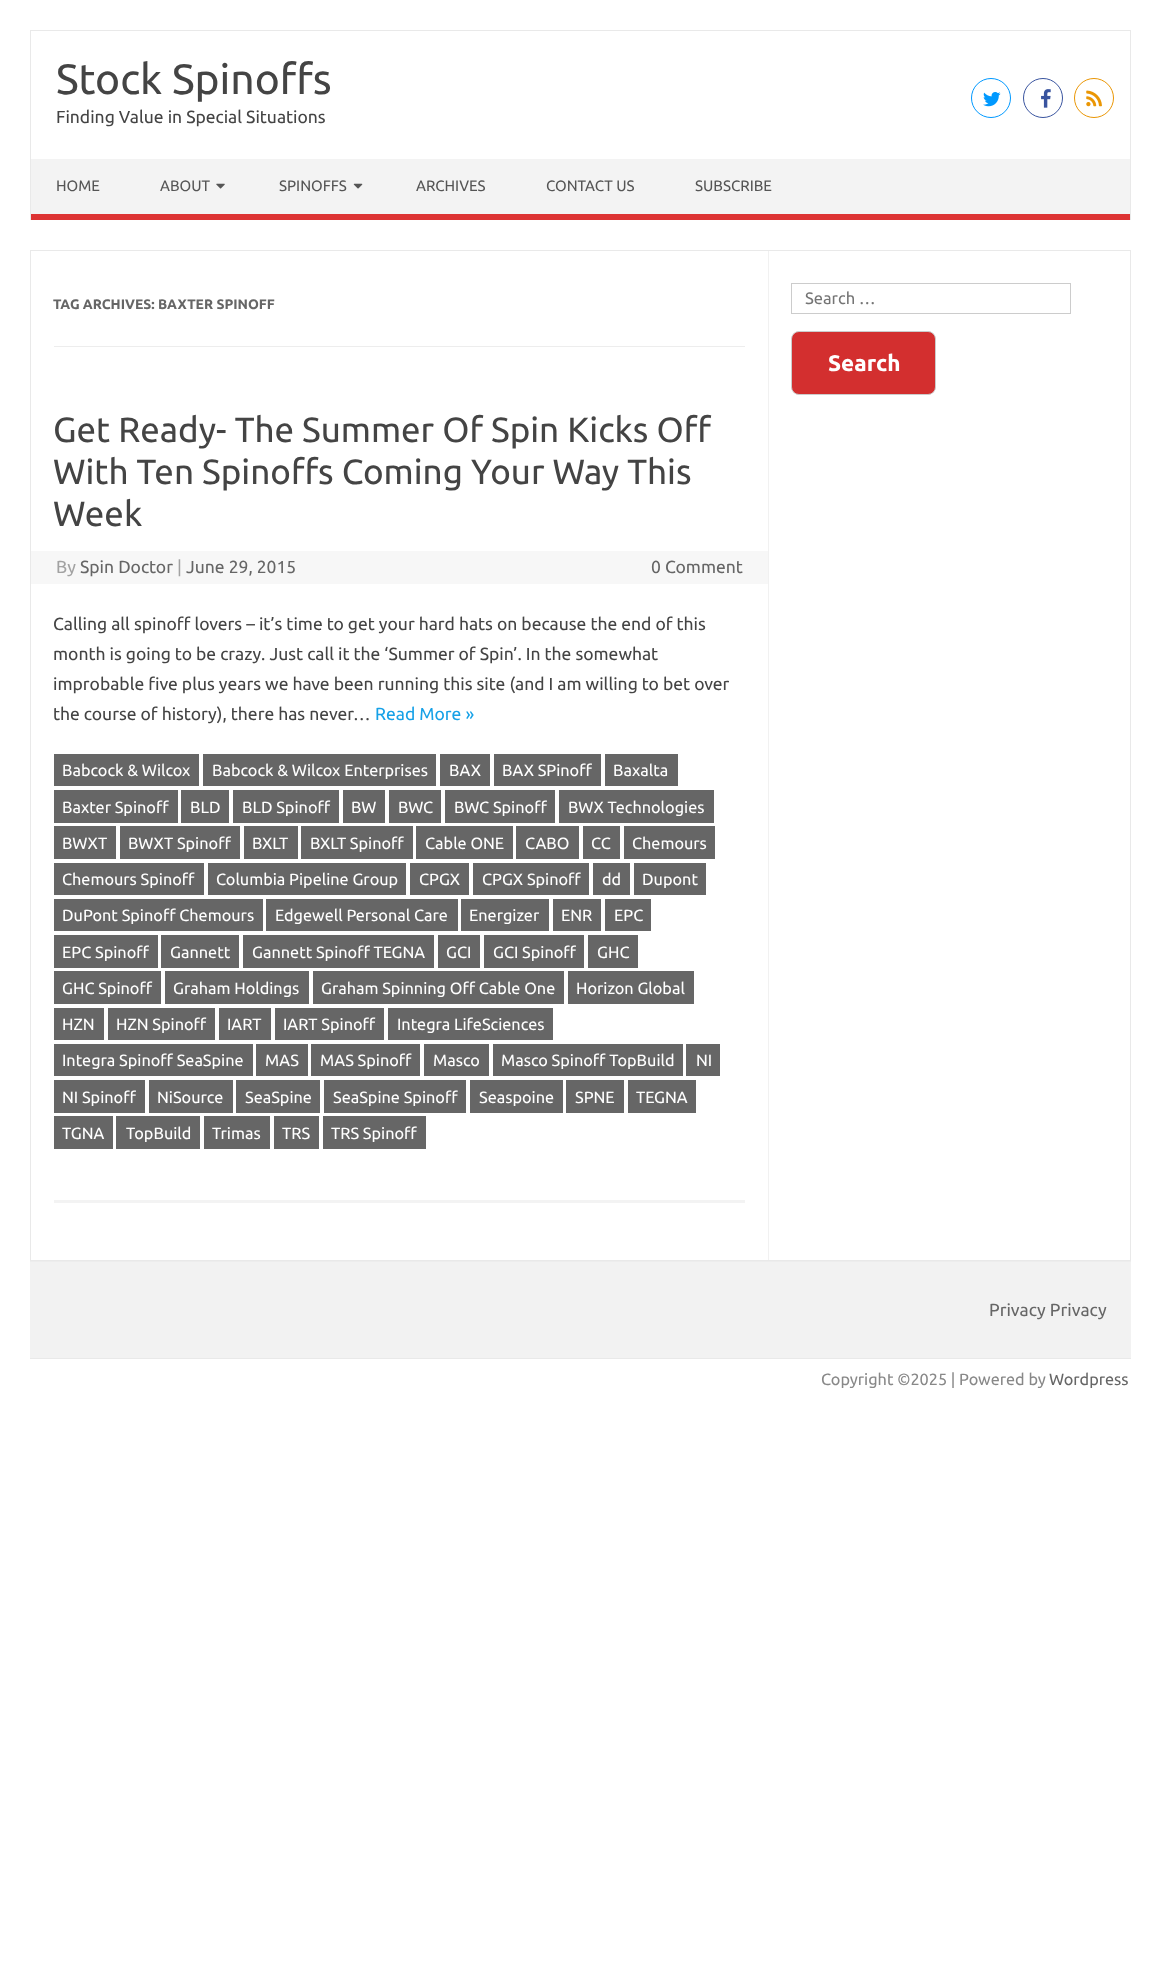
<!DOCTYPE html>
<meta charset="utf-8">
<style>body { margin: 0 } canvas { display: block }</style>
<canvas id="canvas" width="1161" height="1979"></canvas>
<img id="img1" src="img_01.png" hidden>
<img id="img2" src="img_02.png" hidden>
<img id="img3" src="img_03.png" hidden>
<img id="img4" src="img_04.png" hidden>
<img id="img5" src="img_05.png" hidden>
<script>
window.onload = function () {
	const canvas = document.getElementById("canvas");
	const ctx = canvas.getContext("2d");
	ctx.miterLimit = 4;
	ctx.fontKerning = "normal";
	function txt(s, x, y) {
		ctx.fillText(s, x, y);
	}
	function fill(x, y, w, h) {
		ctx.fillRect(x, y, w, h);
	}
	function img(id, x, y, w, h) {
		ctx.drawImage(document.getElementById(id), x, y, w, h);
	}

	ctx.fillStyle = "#FFFFFF";
	fill(0, 0, 1161, 1979);
	ctx.fillStyle = "#E9E9E9";
	fill(30, 30, 1101, 1);
	fill(1130, 30, 1, 190);
	fill(30, 30, 1, 190);
	ctx.beginPath();
	ctx.arc(991, 98, 19.5, 0, Math.PI * 2);
	ctx.strokeStyle = "#0099FF";
	ctx.stroke();
	img("img1", 983, 92, 18, 15);
	ctx.beginPath();
	ctx.arc(1043, 98, 19.5, 0, Math.PI * 2);
	ctx.strokeStyle = "#39549F";
	ctx.stroke();
	img("img2", 1041, 89, 10, 19);
	ctx.beginPath();
	ctx.arc(1094, 98, 19.5, 0, Math.PI * 2);
	ctx.strokeStyle = "#EA9604";
	ctx.stroke();
	img("img3", 1086, 90, 16, 17);
	ctx.fillStyle = "#F3F3F3";
	fill(31, 159, 1099, 55);
	ctx.fillStyle = "#DD3333";
	fill(31, 214, 1099, 6);
	img("img4", 216, 183, 9, 6);
	img("img5", 353, 183, 10, 6);
	ctx.strokeStyle = "#E9E9E9";
	ctx.strokeRect(30.5, 250.5, 1100, 1010);
	ctx.fillStyle = "#F1F1F1";
	fill(768, 251, 1, 1009);
	ctx.fillStyle = "#EDEDED";
	fill(54, 346, 691, 1);
	ctx.fillStyle = "#F3F3F3";
	fill(54, 1200, 691, 3);
	ctx.fillStyle = "#F7F7F7";
	fill(31, 551, 737, 33);
	ctx.fillStyle = "#666666";
	fill(54, 754, 145, 32);
	fill(203, 754, 233, 32);
	fill(440, 754, 50, 32);
	fill(494, 754, 107, 32);
	fill(605, 754, 73, 32);
	fill(54, 790, 124, 33);
	fill(181, 790, 48, 33);
	fill(233, 790, 106, 33);
	fill(343, 790, 42, 33);
	fill(389, 790, 52, 33);
	fill(445, 790, 110, 33);
	fill(559, 790, 155, 33);
	fill(54, 826, 62, 33);
	fill(120, 826, 120, 33);
	fill(244, 826, 54, 33);
	fill(301, 826, 112, 33);
	fill(416, 826, 97, 33);
	fill(516, 826, 63, 33);
	fill(583, 826, 37, 33);
	fill(624, 826, 91, 33);
	fill(54, 863, 150, 32);
	fill(208, 863, 198, 32);
	fill(410, 863, 59, 32);
	fill(473, 863, 116, 32);
	fill(593, 863, 37, 32);
	fill(634, 863, 72, 32);
	fill(54, 899, 209, 32);
	fill(266, 899, 192, 32);
	fill(461, 899, 88, 32);
	fill(553, 899, 48, 32);
	fill(605, 899, 46, 32);
	fill(54, 935, 104, 33);
	fill(161, 935, 78, 33);
	fill(243, 935, 191, 33);
	fill(438, 935, 42, 33);
	fill(484, 935, 100, 33);
	fill(588, 935, 50, 33);
	fill(54, 971, 107, 33);
	fill(165, 971, 144, 33);
	fill(313, 971, 251, 33);
	fill(568, 971, 126, 33);
	fill(54, 1008, 50, 32);
	fill(108, 1008, 107, 32);
	fill(219, 1008, 52, 32);
	fill(275, 1008, 109, 32);
	fill(388, 1008, 165, 32);
	fill(54, 1044, 199, 32);
	fill(256, 1044, 52, 32);
	fill(311, 1044, 109, 32);
	fill(424, 1044, 65, 32);
	fill(493, 1044, 190, 32);
	fill(686, 1044, 34, 32);
	fill(54, 1080, 91, 33);
	fill(149, 1080, 84, 33);
	fill(236, 1080, 84, 33);
	fill(324, 1080, 142, 33);
	fill(470, 1080, 93, 33);
	fill(566, 1080, 58, 33);
	fill(628, 1080, 68, 33);
	fill(54, 1116, 59, 33);
	fill(116, 1116, 84, 33);
	fill(204, 1116, 66, 33);
	fill(274, 1116, 45, 33);
	fill(323, 1116, 103, 33);
	ctx.strokeStyle = "#CCCCCC";
	ctx.strokeRect(791.5, 283.5, 279, 30);
	ctx.fillStyle = "#D32F2F";
	ctx.beginPath();
	ctx.roundRect(791.5, 331.5, 144, 63, 7.5);
	ctx.fill();
	ctx.stroke();
	ctx.fillStyle = "#F2F2F2";
	fill(30, 1262, 1101, 96);
	ctx.fillStyle = "#EDEDED";
	fill(30, 1261, 1101, 1);
	ctx.fillStyle = "#E9E9E9";
	fill(30, 1358, 1101, 1);
	ctx.font = "42.5px Ubuntu";
	ctx.fillStyle = "#444444";
	txt("Stock Spinoffs", 56, 94);
	ctx.font = "17.5px Ubuntu";
	txt("Finding Value in Special Situations", 56, 123);
	ctx.font = "15px Ubuntu";
	ctx.fillStyle = "#555555";
	txt("HOME", 56, 191);
	txt("ABOUT", 160, 191);
	txt("SPINOFFS", 279, 191);
	txt("ARCHIVES", 416, 191);
	txt("CONTACT US", 546, 191);
	txt("SUBSCRIBE", 695, 191);
	ctx.font = "bold 13.75px Ubuntu";
	ctx.fillStyle = "#666666";
	txt("TAG ARCHIVES: BAXTER SPINOFF", 53, 309);
	ctx.font = "35px Ubuntu";
	ctx.fillStyle = "#444444";
	txt("Get Ready- The Summer Of Spin Kicks Off", 53, 442);
	txt("With Ten Spinoffs Coming Your Way This", 53, 484);
	txt("Week", 53, 526);
	ctx.font = "17.5px Ubuntu";
	ctx.fillStyle = "#A2A2A2";
	txt("By", 56, 573);
	ctx.fillStyle = "#666666";
	txt("Spin Doctor", 80, 573);
	ctx.fillStyle = "#A2A2A2";
	txt("|", 177, 573);
	ctx.fillStyle = "#666666";
	txt("June 29, 2015", 186, 573);
	txt("0 Comment", 651, 573);
	ctx.fillStyle = "#444444";
	txt("Calling all spinoff lovers – it’s time to get your hard hats on because the end of this", 53, 630);
	txt("month is going to be crazy. Just call it the ‘Summer of Spin’. In the somewhat", 53, 660);
	txt("improbable five plus years we have been running this site (and I am willing to bet over", 53, 690);
	txt("the course of history), there has never…", 53, 720);
	ctx.fillStyle = "#16A1E7";
	txt("Read More »", 375, 720);
	ctx.font = "16.25px Ubuntu";
	ctx.fillStyle = "#FFFFFF";
	txt("Babcock & Wilcox", 62, 776);
	txt("Babcock & Wilcox Enterprises", 212, 776);
	txt("BAX", 449, 776);
	txt("BAX SPinoff", 502, 776);
	txt("Baxalta", 613, 776);
	txt("Baxter Spinoff", 62, 813);
	txt("BLD", 190, 813);
	txt("BLD Spinoff", 242, 813);
	txt("BW", 351, 813);
	txt("BWC", 398, 813);
	txt("BWC Spinoff", 454, 813);
	txt("BWX Technologies", 568, 813);
	txt("BWXT", 62, 849);
	txt("BWXT Spinoff", 128, 849);
	txt("BXLT", 252, 849);
	txt("BXLT Spinoff", 310, 849);
	txt("Cable ONE", 425, 849);
	txt("CABO", 525, 849);
	txt("CC", 591, 849);
	txt("Chemours", 632, 849);
	txt("Chemours Spinoff", 62, 885);
	txt("Columbia Pipeline Group", 216, 885);
	txt("CPGX", 419, 885);
	txt("CPGX Spinoff", 482, 885);
	txt("dd", 602, 885);
	txt("Dupont", 642, 885);
	txt("DuPont Spinoff Chemours", 62, 921);
	txt("Edgewell Personal Care", 275, 921);
	txt("Energizer", 469, 921);
	txt("ENR", 561, 921);
	txt("EPC", 614, 921);
	txt("EPC Spinoff", 62, 958);
	txt("Gannett", 170, 958);
	txt("Gannett Spinoff TEGNA", 252, 958);
	txt("GCI", 446, 958);
	txt("GCI Spinoff", 493, 958);
	txt("GHC", 597, 958);
	txt("GHC Spinoff", 62, 994);
	txt("Graham Holdings", 173, 994);
	txt("Graham Spinning Off Cable One", 321, 994);
	txt("Horizon Global", 576, 994);
	txt("HZN", 62, 1030);
	txt("HZN Spinoff", 116, 1030);
	txt("IART", 227, 1030);
	txt("IART Spinoff", 283, 1030);
	txt("Integra LifeSciences", 397, 1030);
	txt("Integra Spinoff SeaSpine", 62, 1066);
	txt("MAS", 265, 1066);
	txt("MAS Spinoff", 320, 1066);
	txt("Masco", 433, 1066);
	txt("Masco Spinoff TopBuild", 501, 1066);
	txt("NI", 696, 1066);
	txt("NI Spinoff", 62, 1103);
	txt("NiSource", 157, 1103);
	txt("SeaSpine", 245, 1103);
	txt("SeaSpine Spinoff", 333, 1103);
	txt("Seaspoine", 479, 1103);
	txt("SPNE", 575, 1103);
	txt("TEGNA", 636, 1103);
	txt("TGNA", 62, 1139);
	txt("TopBuild", 126, 1139);
	txt("Trimas", 212, 1139);
	txt("TRS", 282, 1139);
	txt("TRS Spinoff", 331, 1139);
	ctx.font = "16.5px Ubuntu";
	ctx.fillStyle = "#757575";
	txt("Search …", 805, 304);
	ctx.font = "bold 22.5px Ubuntu";
	ctx.fillStyle = "#FFFFFF";
	txt("Search", 828, 371);
	ctx.font = "17.5px Ubuntu";
	ctx.fillStyle = "#666666";
	txt("Privacy Privacy", 989, 1316);
	ctx.font = "16.25px Ubuntu";
	ctx.fillStyle = "#888888";
	txt("Copyright ©2025 | Powered by", 821, 1385);
	ctx.fillStyle = "#666666";
	txt("Wordpress", 1049, 1385);
};
</script>
